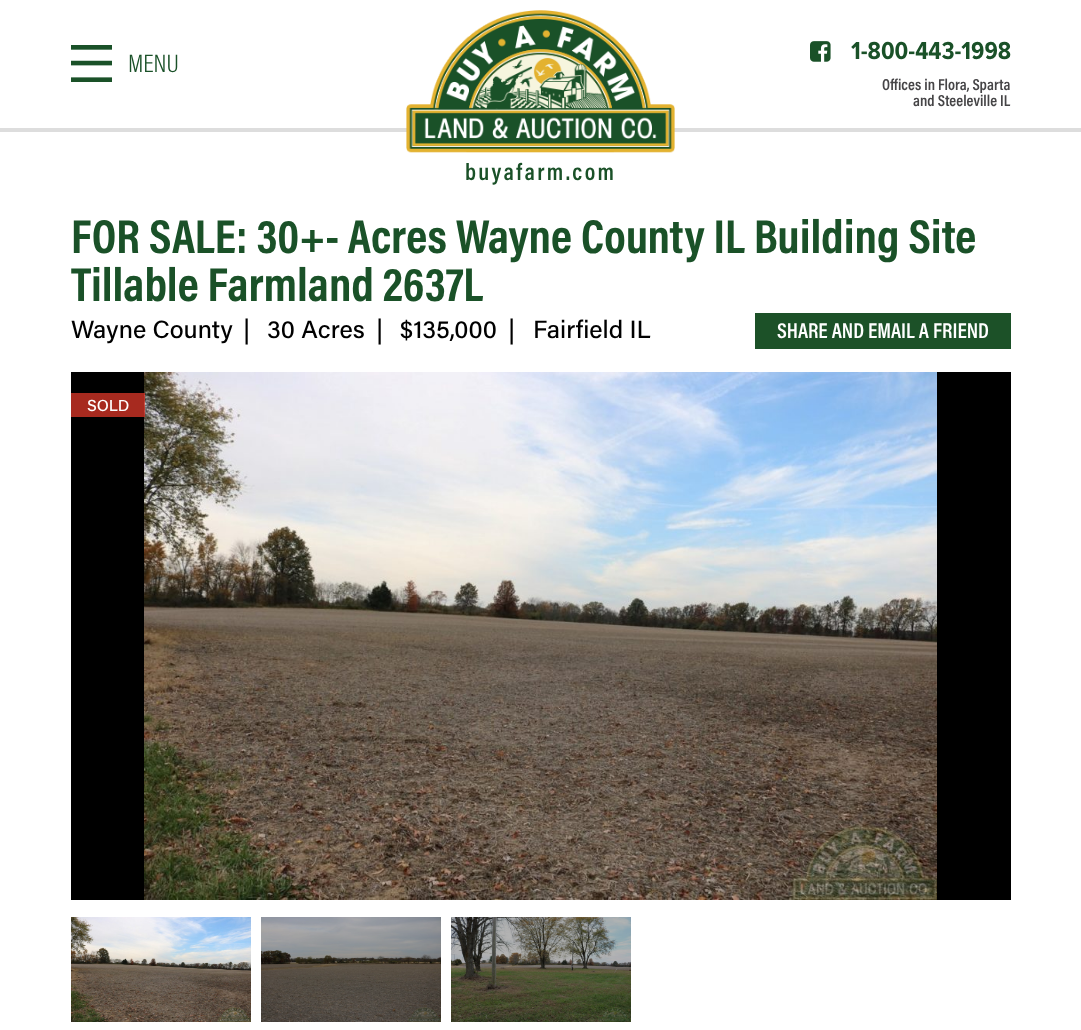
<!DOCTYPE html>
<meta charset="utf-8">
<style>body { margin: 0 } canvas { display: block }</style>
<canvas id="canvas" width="1081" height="1030"></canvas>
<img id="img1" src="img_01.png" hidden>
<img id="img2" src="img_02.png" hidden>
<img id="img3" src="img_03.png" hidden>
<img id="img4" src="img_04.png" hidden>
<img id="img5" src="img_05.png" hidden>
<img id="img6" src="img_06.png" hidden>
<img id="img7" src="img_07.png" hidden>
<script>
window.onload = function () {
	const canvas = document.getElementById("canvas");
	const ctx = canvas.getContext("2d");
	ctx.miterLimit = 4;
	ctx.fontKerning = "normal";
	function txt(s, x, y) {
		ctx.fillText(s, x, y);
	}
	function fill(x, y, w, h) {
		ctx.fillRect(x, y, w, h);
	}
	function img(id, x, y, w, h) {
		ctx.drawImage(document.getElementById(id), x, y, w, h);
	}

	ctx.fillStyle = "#FFFFFF";
	fill(0, 0, 1081, 1030);
	ctx.fillStyle = "#DDDDDD";
	fill(0, 128, 1081, 4);
	img("img1", 71, 45, 41, 37);
	img("img2", 810, 41, 21, 21);
	img("img3", 406, 10, 269, 143);
	ctx.fillStyle = "#1C5128";
	fill(755, 313, 256, 36);
	ctx.fillStyle = "#000000";
	fill(71, 372, 940, 528);
	img("img4", 144, 372, 793, 528);
	ctx.fillStyle = "rgba(209, 53, 39, 0.8)";
	fill(71, 393, 74, 24);
	img("img5", 71, 917, 180, 105);
	img("img6", 261, 917, 180, 105);
	img("img7", 451, 917, 180, 105);
	ctx.font = "300 25.5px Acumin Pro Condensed";
	ctx.fillStyle = "#1A5128";
	txt("MENU", 128, 72);
	ctx.font = "bold 25.5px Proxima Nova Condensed";
	txt("1-800-443-1998", 851, 59);
	ctx.font = "600 16px Acumin Pro Condensed";
	ctx.fillStyle = "#464547";
	txt("Offices in Flora, Sparta", 882, 90);
	txt("and Steeleville IL", 913, 106);
	ctx.letterSpacing = "2.4px";
	ctx.font = "600 24px Acumin Pro Condensed";
	ctx.fillStyle = "#1A5128";
	txt("buyafarm.com", 465, 180);
	ctx.letterSpacing = "0px";
	ctx.font = "bold 48px Acumin Pro Condensed";
	txt("FOR SALE: 30+- Acres Wayne County IL Building Site", 71, 253);
	txt("Tillable Farmland 2637L", 71, 301);
	ctx.font = "500 25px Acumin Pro";
	ctx.fillStyle = "#000000";
	txt("Wayne County", 71, 338);
	txt("|", 243, 338);
	txt("30 Acres", 267, 338);
	txt("|", 376, 338);
	txt("$135,000", 400, 338);
	txt("|", 508, 338);
	txt("Fairfield IL", 533, 338);
	ctx.font = "600 21.6px Acumin Pro Condensed";
	ctx.fillStyle = "#FFFFFF";
	txt("SHARE AND EMAIL A FRIEND", 777, 338);
	ctx.font = "500 16px Acumin Pro";
	txt("SOLD", 87, 411);
};
</script>
